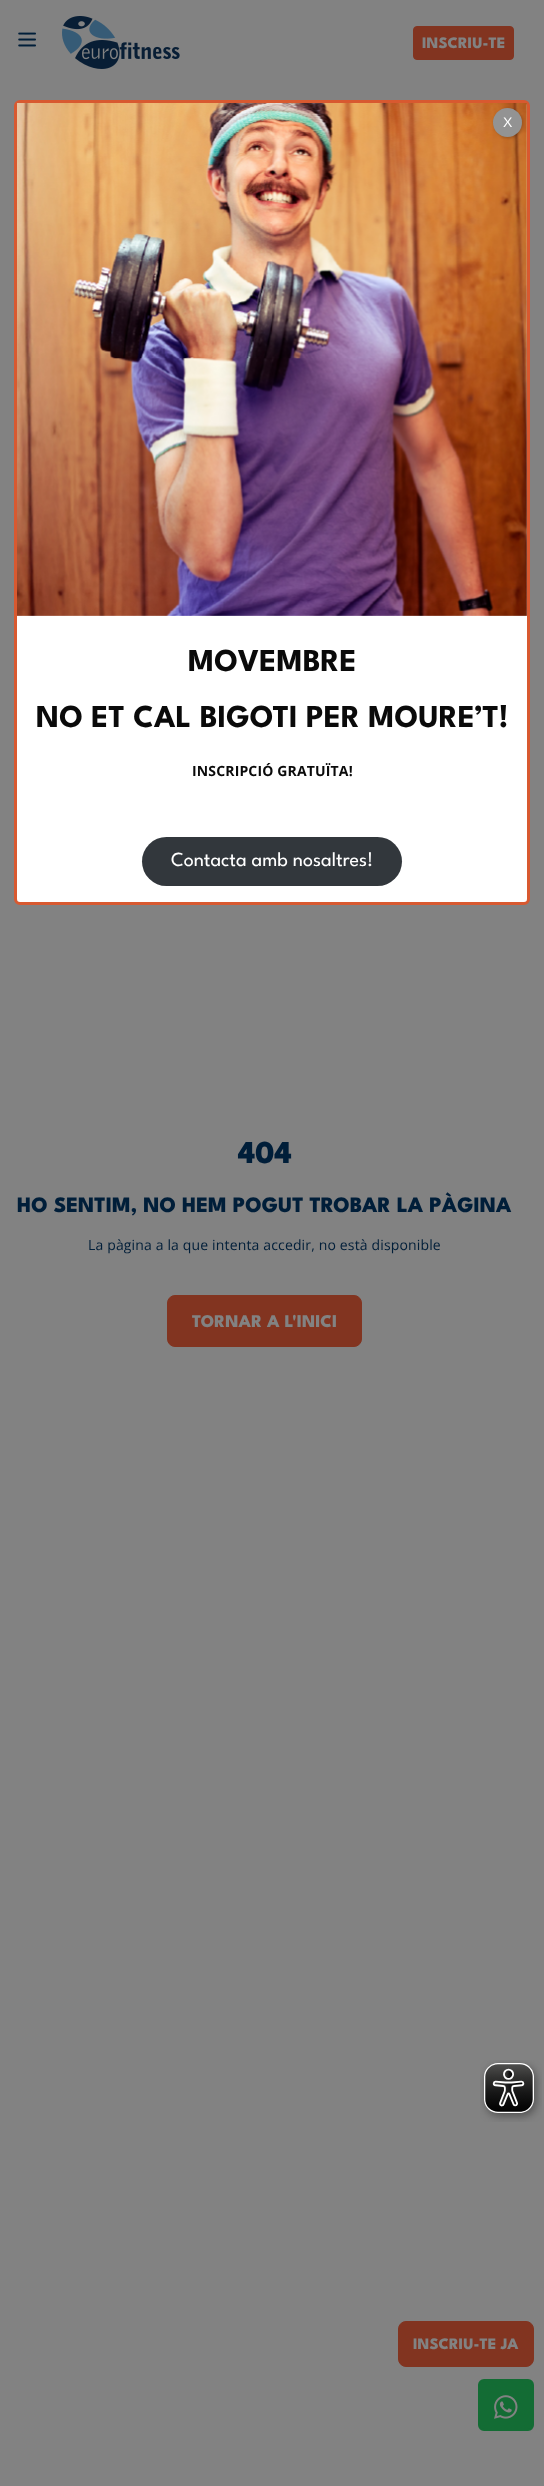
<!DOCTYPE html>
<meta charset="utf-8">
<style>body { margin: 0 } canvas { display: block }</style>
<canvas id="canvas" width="544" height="2486"></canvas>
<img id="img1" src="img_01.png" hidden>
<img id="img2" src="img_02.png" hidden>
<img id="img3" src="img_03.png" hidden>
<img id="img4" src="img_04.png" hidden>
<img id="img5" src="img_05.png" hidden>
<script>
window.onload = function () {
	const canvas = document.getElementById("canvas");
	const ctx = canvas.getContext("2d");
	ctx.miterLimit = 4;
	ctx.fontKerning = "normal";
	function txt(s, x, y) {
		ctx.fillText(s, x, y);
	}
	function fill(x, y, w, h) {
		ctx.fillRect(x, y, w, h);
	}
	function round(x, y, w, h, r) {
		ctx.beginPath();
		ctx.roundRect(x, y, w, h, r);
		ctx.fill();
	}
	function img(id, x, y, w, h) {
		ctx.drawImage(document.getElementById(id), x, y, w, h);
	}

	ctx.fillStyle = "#828282";
	fill(0, 0, 544, 2486);
	img("img1", 18, 32, 18, 15);
	img("img2", 62, 16, 118, 53);
	ctx.fillStyle = "#823420";
	ctx.beginPath();
	ctx.roundRect(413.5, 26.5, 100, 33, 3.5);
	ctx.fill();
	ctx.strokeStyle = "#823420";
	ctx.stroke();
	ctx.beginPath();
	ctx.roundRect(167.5, 1295.5, 194, 51, 7.5);
	ctx.fill();
	ctx.stroke();
	ctx.fillStyle = "#FFFFFF";
	ctx.beginPath();
	ctx.roundRect(15.5, 101.5, 513, 802, 4.5);
	ctx.fill();
	ctx.strokeStyle = "#D85930";
	ctx.lineWidth = 3;
	ctx.stroke();
	img("img3", 17, 103, 510, 513);
	ctx.fillStyle = "rgba(2, 2, 2, 0.23)";
	ctx.filter = "blur(1.5px)";
	ctx.beginPath();
	ctx.roundRect(494, 109, 29, 29, 14.5);
	ctx.fill();
	ctx.filter = "none";
	ctx.fillStyle = "#939393";
	ctx.beginPath();
	ctx.arc(507.5, 122.5, 14.5, 0, Math.PI * 2);
	ctx.fill();
	ctx.fillStyle = "#32373C";
	round(142, 837, 260, 49, 24.5);
	img("img4", 480, 2060, 62, 62);
	ctx.fillStyle = "#823420";
	ctx.beginPath();
	ctx.roundRect(398.5, 2321.5, 135, 45, 7.5);
	ctx.fill();
	ctx.strokeStyle = "#823420";
	ctx.lineWidth = 1;
	ctx.stroke();
	ctx.fillStyle = "#136C34";
	ctx.beginPath();
	ctx.roundRect(479, 2380, 54, 50, 5);
	ctx.fill();
	ctx.strokeStyle = "#136C34";
	ctx.lineWidth = 2;
	ctx.stroke();
	img("img5", 494, 2395, 24, 24);
	ctx.font = "800 16px League Spartan";
	ctx.fillStyle = "#828282";
	txt("INSCRIU-TE", 422, 48);
	ctx.font = "800 32px League Spartan";
	ctx.fillStyle = "#001E39";
	txt("404", 238, 1163);
	ctx.font = "800 22px League Spartan";
	txt("HO SENTIM, NO HEM POGUT TROBAR LA PÀGINA", 17, 1212);
	ctx.letterSpacing = "0.15px";
	ctx.font = "14px Open Sans";
	txt("La pàgina a la que intenta accedir, no està disponible", 88, 1250);
	ctx.letterSpacing = "0px";
	ctx.font = "800 18px League Spartan";
	ctx.fillStyle = "#828282";
	txt("TORNAR A L'INICI", 192, 1327);
	ctx.font = "14px Liberation Sans";
	ctx.fillStyle = "#FFFFFF";
	txt("X", 503, 127);
	ctx.font = "bold 32px League Spartan";
	ctx.fillStyle = "#0A0A0A";
	txt("MOVEMBRE", 188, 671);
	txt("NO ET CAL BIGOTI PER MOURE’T!", 36, 727);
	ctx.letterSpacing = "0.15px";
	ctx.font = "bold 14px Open Sans";
	txt("INSCRIPCIÓ GRATUÏTA!", 192, 776);
	ctx.letterSpacing = "0px";
	ctx.font = "20px League Spartan";
	ctx.fillStyle = "#FFFFFF";
	txt("Contacta amb nosaltres!", 171, 866);
	ctx.font = "800 16px League Spartan";
	ctx.fillStyle = "#828282";
	txt("INSCRIU-TE JA", 413, 2349);
};
</script>
